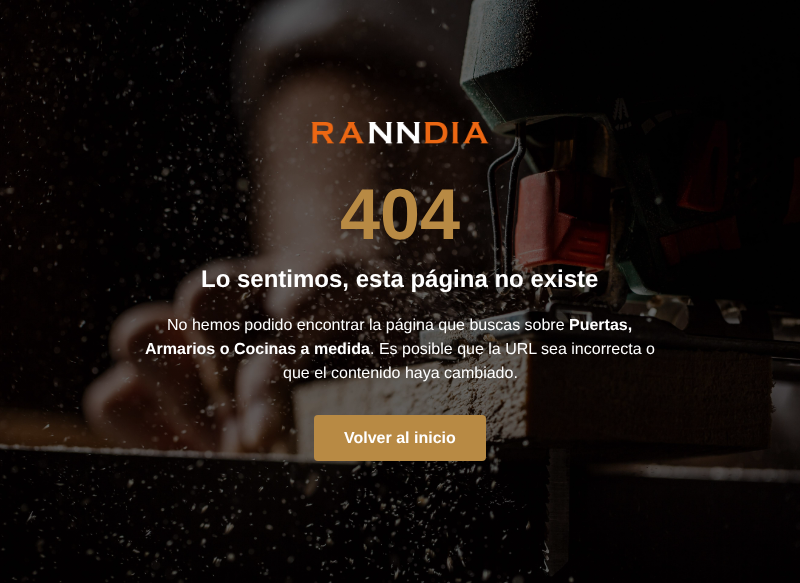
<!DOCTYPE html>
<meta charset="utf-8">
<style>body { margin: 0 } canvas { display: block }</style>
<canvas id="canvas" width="800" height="583"></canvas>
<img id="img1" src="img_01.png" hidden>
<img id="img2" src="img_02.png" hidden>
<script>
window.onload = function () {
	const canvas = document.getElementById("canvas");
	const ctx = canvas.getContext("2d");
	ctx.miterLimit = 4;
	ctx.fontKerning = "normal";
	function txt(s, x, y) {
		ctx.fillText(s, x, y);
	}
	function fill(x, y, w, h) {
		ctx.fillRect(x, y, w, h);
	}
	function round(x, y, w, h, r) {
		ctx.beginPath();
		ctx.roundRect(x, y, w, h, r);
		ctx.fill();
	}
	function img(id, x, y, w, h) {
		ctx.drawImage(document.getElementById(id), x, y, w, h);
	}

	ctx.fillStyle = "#FFFFFF";
	fill(0, 0, 800, 583);
	img("img1", 0, 0, 800, 583);
	img("img2", 311, 122, 178, 22);
	ctx.fillStyle = "#B88A44";
	round(314, 415, 172, 46, 4);
	ctx.font = "bold 72px Liberation Sans";
	txt("404", 340, 239);
	ctx.font = "bold 24px Liberation Sans";
	ctx.fillStyle = "#FFFFFF";
	txt("Lo sentimos, esta página no existe", 201, 287);
	ctx.font = "16px Liberation Sans";
	txt("No hemos podido encontrar la página que buscas sobre", 167, 330);
	ctx.font = "bold 16px Liberation Sans";
	txt("Puertas,", 569, 330);
	txt("Armarios o Cocinas a medida", 145, 354);
	ctx.font = "16px Liberation Sans";
	txt(". Es posible que la URL sea incorrecta o", 370, 354);
	txt("que el contenido haya cambiado.", 283, 378);
	ctx.font = "bold 16px Liberation Sans";
	txt("Volver al inicio", 344, 443);
};
</script>
